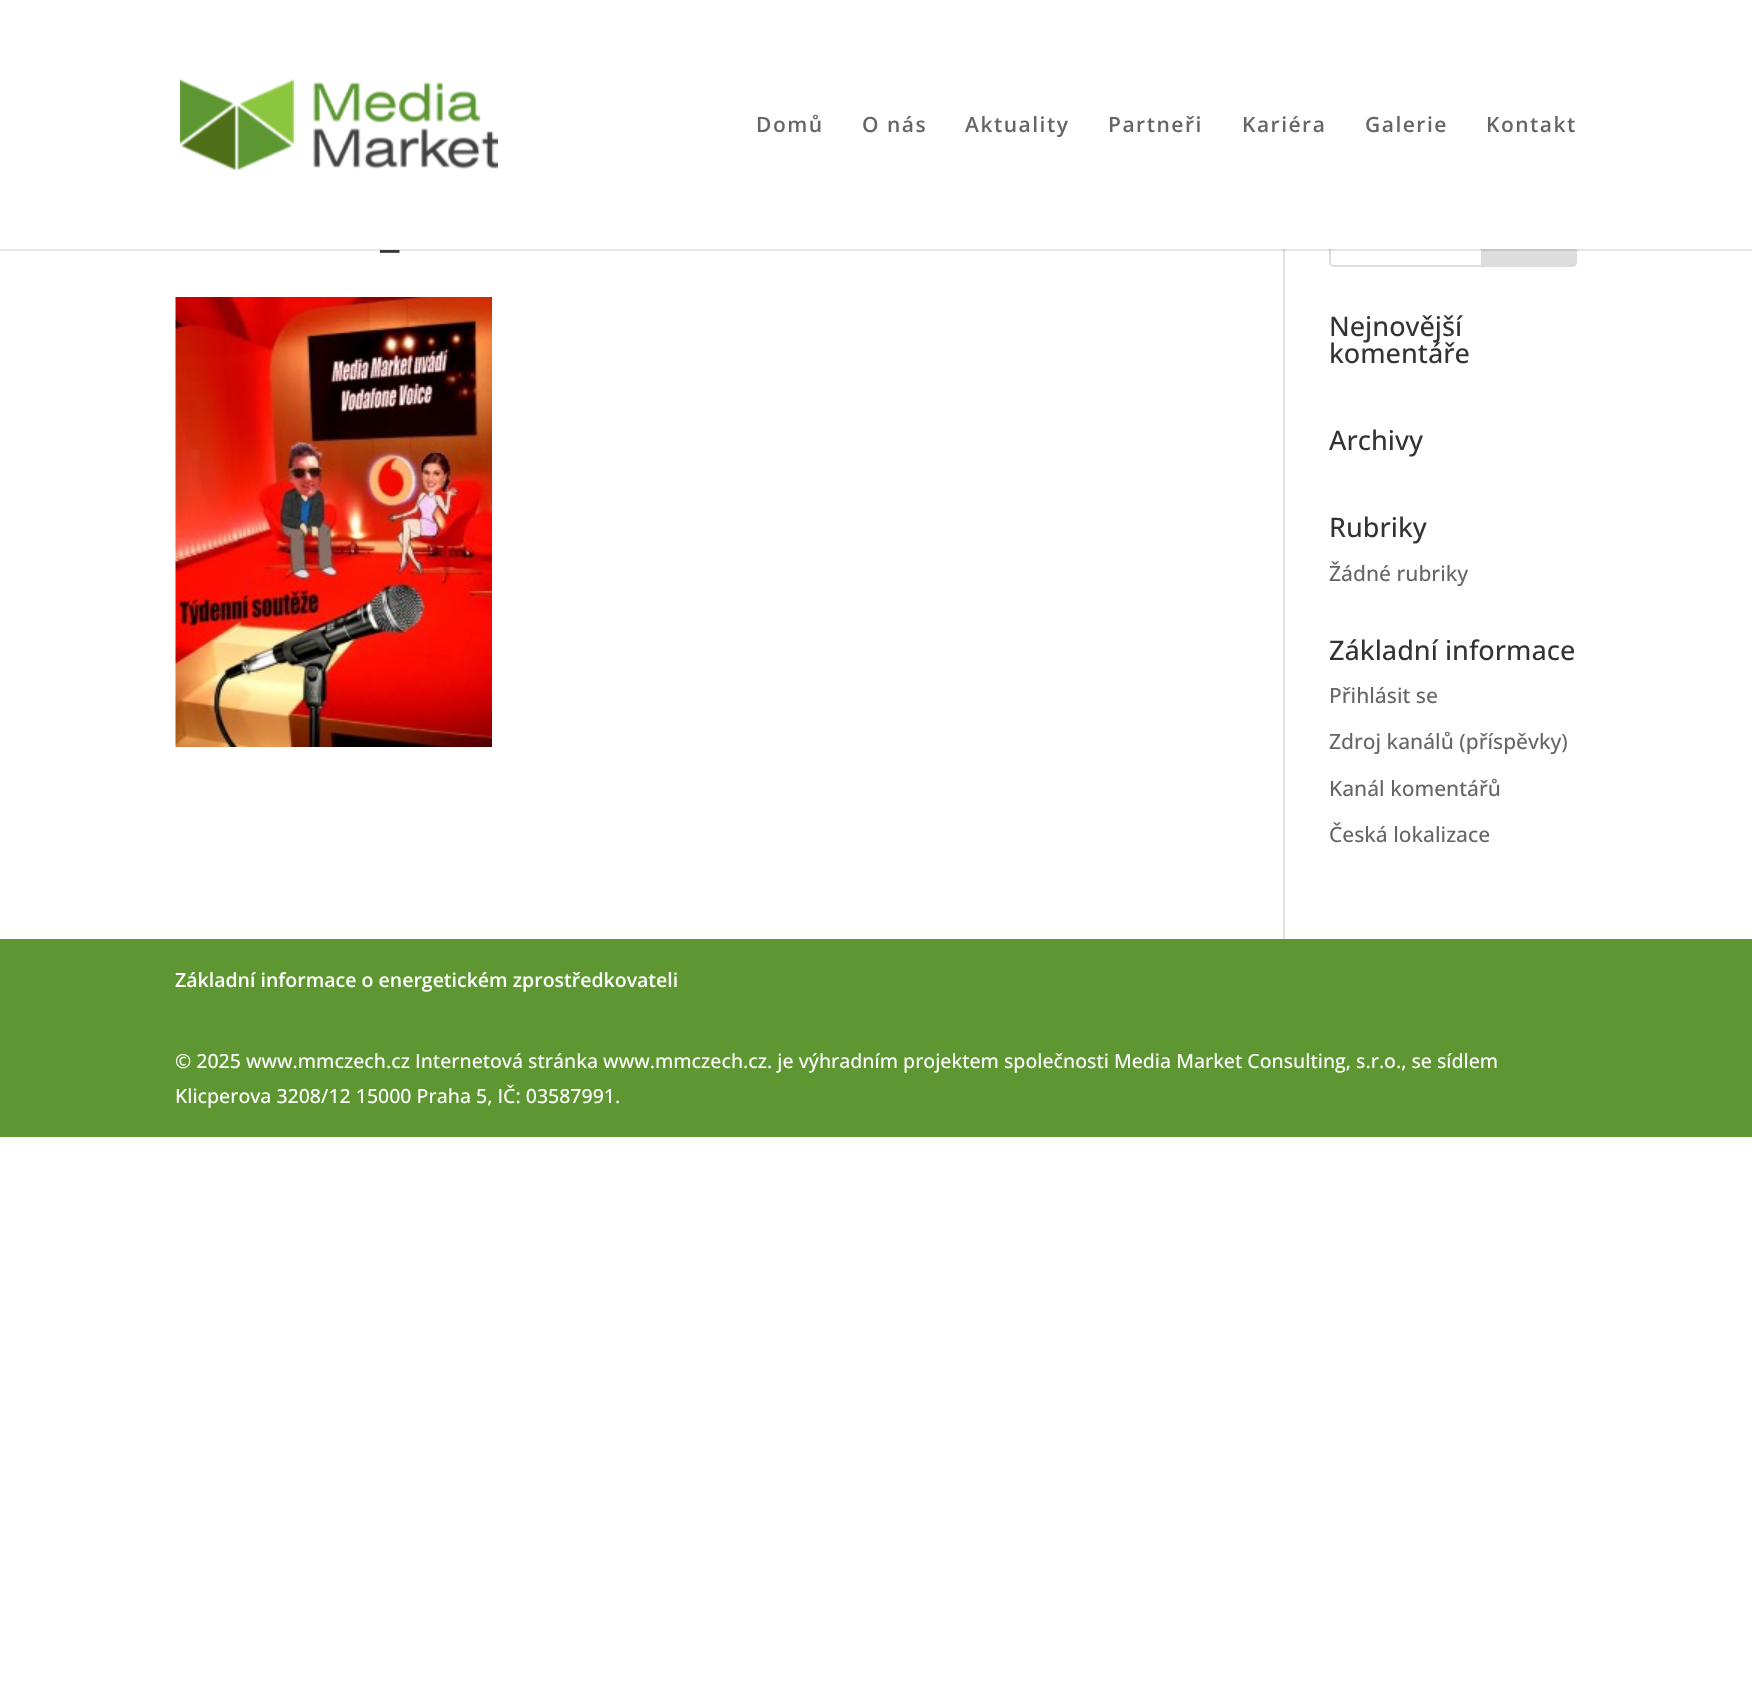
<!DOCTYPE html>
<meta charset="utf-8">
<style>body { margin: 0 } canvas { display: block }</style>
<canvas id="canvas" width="1752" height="1683"></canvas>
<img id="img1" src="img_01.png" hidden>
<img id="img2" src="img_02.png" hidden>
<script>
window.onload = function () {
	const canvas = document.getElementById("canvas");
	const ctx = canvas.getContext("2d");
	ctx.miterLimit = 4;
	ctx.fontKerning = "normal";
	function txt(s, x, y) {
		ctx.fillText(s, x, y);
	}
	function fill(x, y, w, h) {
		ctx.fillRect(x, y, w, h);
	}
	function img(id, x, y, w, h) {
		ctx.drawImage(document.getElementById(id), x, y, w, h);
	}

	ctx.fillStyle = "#FFFFFF";
	fill(0, 0, 1752, 1683);
	ctx.fillStyle = "#E2E2E2";
	fill(1283, 249, 2, 690);
	ctx.beginPath();
	ctx.roundRect(1330, 208, 246, 58, 4);
	ctx.strokeStyle = "#DDDDDD";
	ctx.lineWidth = 2;
	ctx.stroke();
	ctx.fillStyle = "#DDDDDD";
	ctx.beginPath();
	ctx.roundRect(1482, 208, 94, 58, [0, 4, 4, 0]);
	ctx.fill();
	ctx.stroke();
	ctx.fillStyle = "rgba(0, 0, 0, 0.1)";
	fill(0, 249, 1752, 2);
	ctx.fillStyle = "#FFFFFF";
	fill(1329, 207, 248, 42);
	img("img1", 180, 79, 318, 91);
	img("img2", 175, 297, 317, 450);
	ctx.fillStyle = "#5E9732";
	fill(0, 939, 1752, 198);
	ctx.letterSpacing = "1.5px";
	ctx.font = "600 21px Open Sans";
	ctx.fillStyle = "#666666";
	txt("Domů", 756, 132);
	txt("O nás", 862, 132);
	txt("Aktuality", 965, 132);
	txt("Partneři", 1108, 132);
	txt("Kariéra", 1242, 132);
	txt("Galerie", 1365, 132);
	txt("Kontakt", 1486, 132);
	ctx.letterSpacing = "0px";
	ctx.font = "500 45px Open Sans";
	ctx.fillStyle = "#333333";
	txt("_", 380, 246);
	ctx.font = "500 27px Open Sans";
	txt("Nejnovější", 1329, 336);
	txt("komentáře", 1329, 363);
	txt("Archivy", 1329, 450);
	txt("Rubriky", 1329, 537);
	ctx.font = "500 21px Open Sans";
	ctx.fillStyle = "#666666";
	txt("Žádné rubriky", 1329, 581);
	ctx.font = "500 27px Open Sans";
	ctx.fillStyle = "#333333";
	txt("Základní informace", 1329, 660);
	ctx.font = "500 21px Open Sans";
	ctx.fillStyle = "#666666";
	txt("Přihlásit se", 1329, 703);
	txt("Zdroj kanálů (příspěvky)", 1329, 749);
	txt("Kanál komentářů", 1329, 796);
	txt("Česká lokalizace", 1329, 842);
	ctx.font = "600 19.5px Open Sans";
	ctx.fillStyle = "#FFFFFF";
	txt("Základní informace o energetickém zprostředkovateli", 175, 987);
	ctx.font = "500 19.5px Open Sans";
	txt("© 2025 www.mmczech.cz Internetová stránka www.mmczech.cz. je výhradním projektem společnosti Media Market Consulting, s.r.o., se sídlem", 175, 1068);
	txt("Klicperova 3208/12 15000 Praha 5, IČ: 03587991.", 175, 1103);
};
</script>
